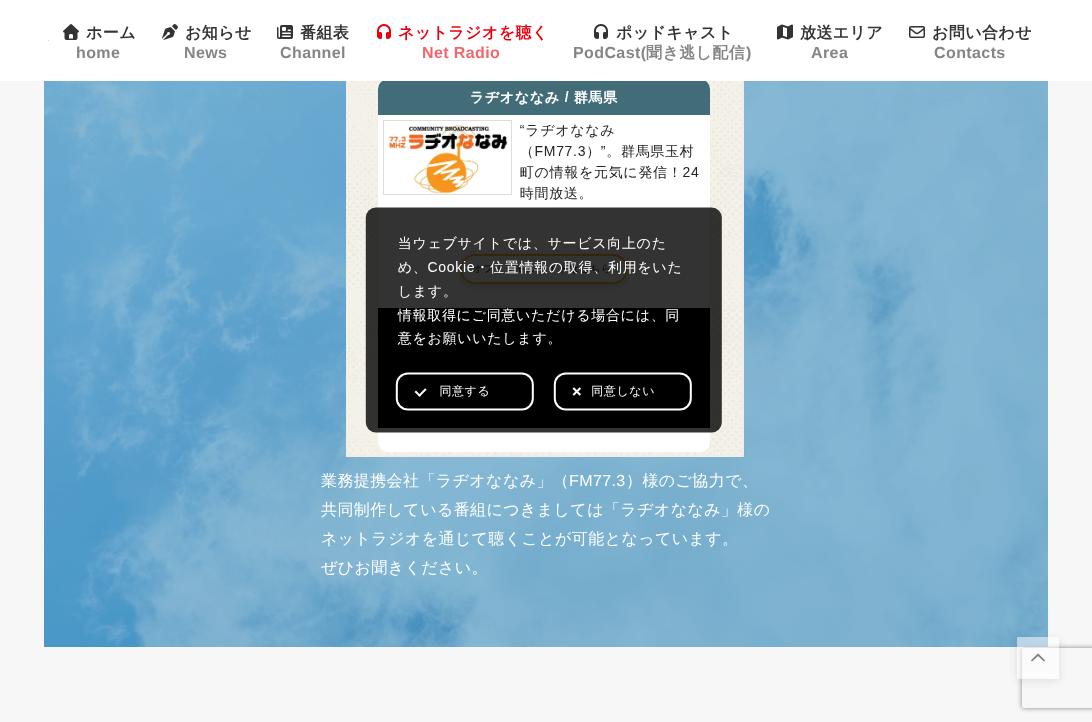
<!DOCTYPE html>
<meta charset="utf-8">
<style>body { margin: 0 } canvas { display: block }</style>
<canvas id="canvas" width="1092" height="722"></canvas>
<img id="img1" src="img_08.png" hidden>
<img id="img2" src="img_01.png" hidden>
<img id="img3" src="img_02.png" hidden>
<img id="img4" src="img_03.png" hidden>
<img id="img5" src="img_04.png" hidden>
<img id="img6" src="img_05.png" hidden>
<img id="img7" src="img_06.png" hidden>
<img id="img8" src="img_07.png" hidden>
<img id="img9" src="img_09.png" hidden>
<img id="img10" src="img_10.png" hidden>
<script>
window.onload = function () {
	const canvas = document.getElementById("canvas");
	const ctx = canvas.getContext("2d");
	ctx.miterLimit = 4;
	ctx.fontKerning = "normal";
	function txt(s, x, y) {
		ctx.fillText(s, x, y);
	}
	function fill(x, y, w, h) {
		ctx.fillRect(x, y, w, h);
	}
	function round(x, y, w, h, r) {
		ctx.beginPath();
		ctx.roundRect(x, y, w, h, r);
		ctx.fill();
	}
	function img(id, x, y, w, h) {
		ctx.drawImage(document.getElementById(id), x, y, w, h);
	}

	ctx.fillStyle = "#F7F7F7";
	fill(0, 0, 1092, 722);
	img("img1", 44, 81, 1004, 566);
	ctx.fillStyle = "#EEEEEE";
	ctx.beginPath();
	ctx.moveTo(744, -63);
	ctx.lineTo(744, 457);
	ctx.lineTo(742, 455);
	ctx.lineTo(742, -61);
	ctx.closePath();
	ctx.fill();
	ctx.fillStyle = "#FFFFFF";
	fill(0, 0, 1092, 81);
	ctx.fillStyle = "#F6C5C7";
	fill(48, 40, 1, 1);
	img("img2", 63, 24, 16, 16);
	img("img3", 162, 24, 16, 16);
	img("img4", 277, 25, 16, 14);
	img("img5", 377, 24, 14, 15);
	img("img6", 594, 24, 14, 15);
	img("img7", 777, 24, 16, 16);
	img("img8", 909, 26, 16, 12);
	ctx.save();
	ctx.beginPath();
	ctx.rect(346, 57, 400, 410);
	ctx.clip();
	ctx.fillStyle = "#EEEEEE";
	ctx.beginPath();
	ctx.moveTo(744, 457);
	ctx.lineTo(344, 457);
	ctx.lineTo(346, 455);
	ctx.lineTo(742, 455);
	ctx.closePath();
	ctx.fill();
	ctx.restore();
	img("img9", 346, 81, 396, 374);
	ctx.save();
	ctx.beginPath();
	ctx.moveTo(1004, 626);
	ctx.lineTo(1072, 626);
	ctx.lineTo(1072, 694);
	ctx.lineTo(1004, 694);
	ctx.closePath();
	ctx.moveTo(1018, 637);
	ctx.lineTo(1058, 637);
	ctx.bezierCurveTo(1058.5, 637, 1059, 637.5, 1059, 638);
	ctx.lineTo(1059, 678);
	ctx.bezierCurveTo(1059, 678.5, 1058.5, 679, 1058, 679);
	ctx.lineTo(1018, 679);
	ctx.bezierCurveTo(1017.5, 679, 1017, 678.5, 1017, 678);
	ctx.lineTo(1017, 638);
	ctx.bezierCurveTo(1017, 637.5, 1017.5, 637, 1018, 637);
	ctx.closePath();
	ctx.clip("evenodd");
	ctx.fillStyle = "rgba(0, 0, 0, 0.1)";
	ctx.filter = "blur(4px)";
	ctx.beginPath();
	ctx.roundRect(1017, 639, 42, 42, 1);
	ctx.fill();
	ctx.filter = "none";
	ctx.restore();
	ctx.save();
	ctx.beginPath();
	ctx.moveTo(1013, 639);
	ctx.lineTo(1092, 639);
	ctx.lineTo(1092, 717);
	ctx.lineTo(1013, 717);
	ctx.closePath();
	ctx.moveTo(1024, 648);
	ctx.lineTo(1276, 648);
	ctx.bezierCurveTo(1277, 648, 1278, 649, 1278, 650);
	ctx.lineTo(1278, 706);
	ctx.bezierCurveTo(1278, 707, 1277, 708, 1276, 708);
	ctx.lineTo(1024, 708);
	ctx.bezierCurveTo(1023, 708, 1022, 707, 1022, 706);
	ctx.lineTo(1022, 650);
	ctx.bezierCurveTo(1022, 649, 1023, 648, 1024, 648);
	ctx.closePath();
	ctx.clip("evenodd");
	ctx.fillStyle = "#808080";
	ctx.filter = "blur(2.5px)";
	ctx.beginPath();
	ctx.roundRect(1022, 648, 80, 60, 2);
	ctx.fill();
	ctx.filter = "none";
	ctx.restore();
	ctx.fillStyle = "rgba(255, 255, 255, 0.5)";
	round(1017, 637, 42, 42, 1);
	img("img10", 1031, 653, 14, 9);
	ctx.letterSpacing = "0.4px";
	ctx.font = "bold 16px WenQuanYi Zen Hei";
	ctx.fillStyle = "#333333";
	txt("ホーム", 86, 38);
	ctx.font = "bold 16px Liberation Sans";
	ctx.fillStyle = "#858585";
	txt("home", 76, 58);
	ctx.font = "bold 16px WenQuanYi Zen Hei";
	ctx.fillStyle = "#333333";
	txt("お知らせ", 185, 38);
	ctx.font = "bold 16px Liberation Sans";
	ctx.fillStyle = "#858585";
	txt("News", 184, 58);
	ctx.font = "bold 16px WenQuanYi Zen Hei";
	ctx.fillStyle = "#333333";
	txt("番組表", 300, 38);
	ctx.font = "bold 16px Liberation Sans";
	ctx.fillStyle = "#858585";
	txt("Channel", 280, 58);
	ctx.font = "bold 16px WenQuanYi Zen Hei";
	ctx.fillStyle = "#EC000D";
	txt("ネットラジオを聴く", 398, 38);
	ctx.font = "bold 16px Liberation Sans";
	ctx.fillStyle = "#F4666E";
	txt("Net Radio", 422, 58);
	ctx.font = "bold 16px WenQuanYi Zen Hei";
	ctx.fillStyle = "#333333";
	txt("ポッドキャスト", 616, 38);
	ctx.font = "bold 16px Liberation Sans";
	ctx.fillStyle = "#858585";
	txt("PodCast(", 573, 58);
	ctx.font = "bold 16px WenQuanYi Zen Hei";
	txt("聞き逃し配信", 646, 58);
	ctx.font = "bold 16px Liberation Sans";
	txt(")", 746, 58);
	ctx.font = "bold 16px WenQuanYi Zen Hei";
	ctx.fillStyle = "#333333";
	txt("放送エリア", 800, 38);
	ctx.font = "bold 16px Liberation Sans";
	ctx.fillStyle = "#858585";
	txt("Area", 811, 58);
	ctx.font = "bold 16px WenQuanYi Zen Hei";
	ctx.fillStyle = "#333333";
	txt("お問い合わせ", 932, 38);
	ctx.font = "bold 16px Liberation Sans";
	ctx.fillStyle = "#858585";
	txt("Contacts", 934, 58);
	ctx.font = "500 16px WenQuanYi Zen Hei";
	ctx.fillStyle = "#FFFFFF";
	txt("業務提携会社「ラヂオななみ」（", 321, 486);
	ctx.font = "16px Liberation Sans";
	txt("FM77.3", 569, 486);
	ctx.font = "500 16px WenQuanYi Zen Hei";
	txt("）様のご協力で、", 626, 486);
	txt("共同制作している番組につきましては「ラヂオななみ」様の", 321, 515);
	txt("ネットラジオを通じて聴くことが可能となっています。", 321, 544);
	txt("ぜひお聞きください。", 321, 573);
};
</script>
